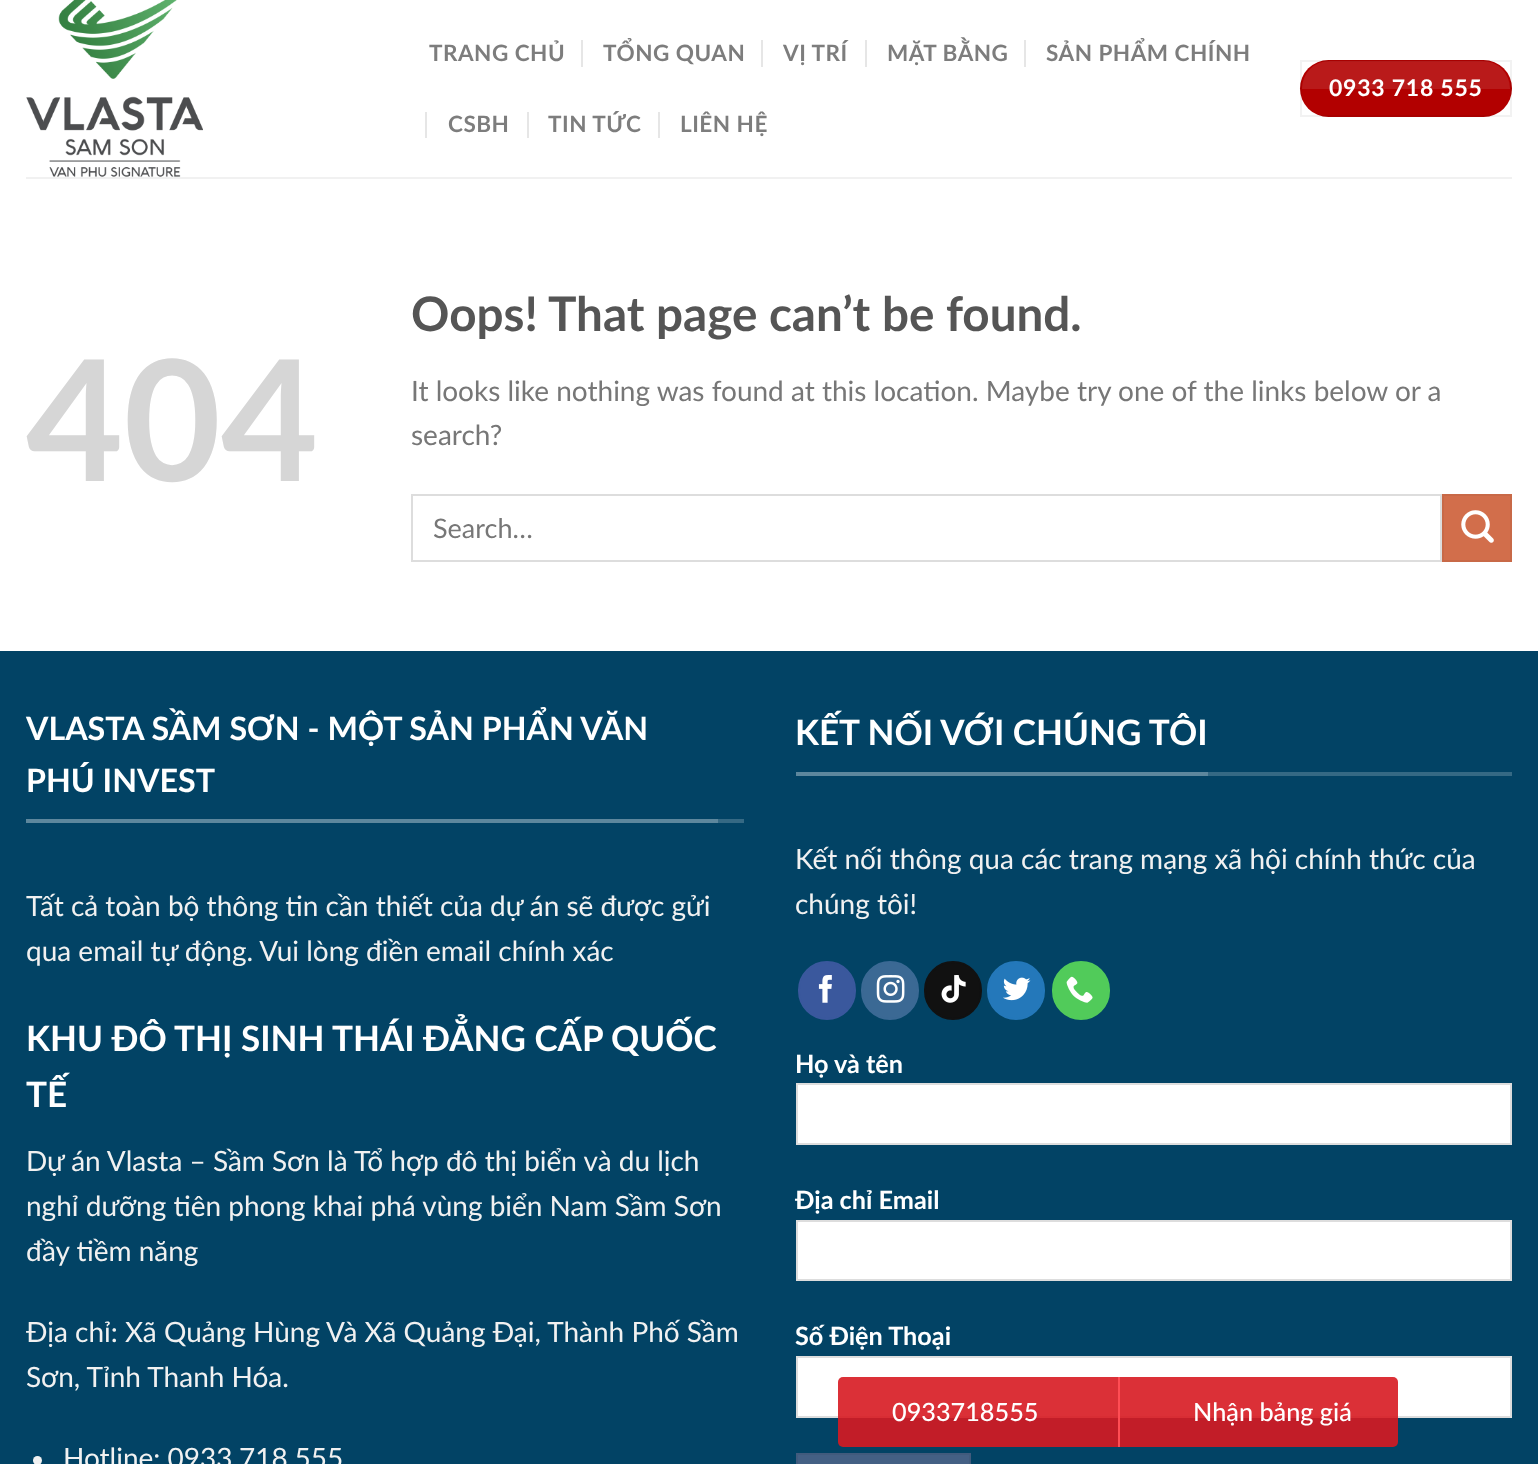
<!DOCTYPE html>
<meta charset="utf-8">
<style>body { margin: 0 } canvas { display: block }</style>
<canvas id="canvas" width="1538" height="1464"></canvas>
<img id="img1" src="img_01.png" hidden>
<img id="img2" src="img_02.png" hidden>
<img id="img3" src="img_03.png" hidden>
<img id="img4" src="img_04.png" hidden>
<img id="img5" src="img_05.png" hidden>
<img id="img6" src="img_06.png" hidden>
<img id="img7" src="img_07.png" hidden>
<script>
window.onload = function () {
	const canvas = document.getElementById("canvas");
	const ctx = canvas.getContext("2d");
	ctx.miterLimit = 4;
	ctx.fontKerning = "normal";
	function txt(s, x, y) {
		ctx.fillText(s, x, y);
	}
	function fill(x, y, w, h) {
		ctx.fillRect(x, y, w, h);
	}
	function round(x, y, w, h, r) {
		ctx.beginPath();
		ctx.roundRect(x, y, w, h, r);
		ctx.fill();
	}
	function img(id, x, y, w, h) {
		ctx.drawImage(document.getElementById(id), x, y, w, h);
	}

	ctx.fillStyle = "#FFFFFF";
	fill(0, 0, 1538, 1464);
	img("img1", 26, 0, 177, 177);
	ctx.fillStyle = "#E6E6E6";
	fill(581, 40, 2, 27);
	fill(761, 40, 2, 27);
	fill(865, 40, 2, 27);
	fill(1024, 40, 2, 27);
	fill(425, 112, 2, 26);
	fill(527, 112, 2, 26);
	fill(658, 112, 2, 26);
	ctx.fillStyle = "#B20000";
	round(1300, 60, 212, 57, 28.5);
	ctx.strokeStyle = "rgba(0, 0, 0, 0.05)";
	ctx.lineWidth = 2;
	ctx.strokeRect(1301, 61, 210, 55);
	ctx.fillStyle = "rgba(255, 255, 255, 0.1)";
	ctx.beginPath();
	ctx.roundRect(1302, 61, 208, 28, [27.5, 27.5, 0, 0]);
	ctx.fill();
	ctx.fillStyle = "#F1F1F1";
	fill(26, 177, 1486, 2);
	ctx.strokeStyle = "#DDDDDD";
	ctx.strokeRect(412, 495, 1029, 66);
	ctx.fillStyle = "#D26E4B";
	ctx.beginPath();
	ctx.rect(1443, 495, 68, 66);
	ctx.fill();
	ctx.strokeStyle = "#C86947";
	ctx.stroke();
	img("img2", 1461, 510, 33, 33);
	ctx.fillStyle = "#024365";
	fill(0, 651, 1538, 813);
	ctx.fillStyle = "#356984";
	fill(718, 819, 26, 4);
	ctx.fillStyle = "#5D879D";
	fill(26, 819, 692, 4);
	ctx.fillStyle = "#F1F1F1";
	ctx.beginPath();
	ctx.arc(37.5, 1460.5, 4.5, 0, Math.PI * 2);
	ctx.fill();
	ctx.fillStyle = "#356984";
	fill(1208, 772, 304, 4);
	ctx.fillStyle = "#5D879D";
	fill(796, 772, 412, 4);
	ctx.fillStyle = "#3A589D";
	ctx.beginPath();
	ctx.roundRect(799, 962, 56, 57, 28);
	ctx.fill();
	ctx.strokeStyle = "#3A589D";
	ctx.stroke();
	img("img3", 818, 975, 14, 28);
	ctx.fillStyle = "#3B6994";
	ctx.beginPath();
	ctx.roundRect(862, 962, 56, 57, 28);
	ctx.fill();
	ctx.strokeStyle = "#3B6994";
	ctx.stroke();
	img("img4", 876, 975, 29, 28);
	ctx.fillStyle = "#111111";
	ctx.beginPath();
	ctx.roundRect(925, 962, 56, 57, 28);
	ctx.fill();
	ctx.strokeStyle = "#111111";
	ctx.stroke();
	img("img5", 941, 975, 25, 28);
	ctx.fillStyle = "#2478BA";
	ctx.beginPath();
	ctx.roundRect(988, 962, 56, 57, 28);
	ctx.fill();
	ctx.strokeStyle = "#2478BA";
	ctx.stroke();
	img("img6", 1003, 977, 28, 24);
	ctx.fillStyle = "#51CB5A";
	ctx.beginPath();
	ctx.roundRect(1053, 962, 56, 57, 28);
	ctx.fill();
	ctx.strokeStyle = "#51CB5A";
	ctx.stroke();
	img("img7", 1066, 976, 27, 27);
	ctx.fillStyle = "#FFFFFF";
	ctx.beginPath();
	ctx.rect(797, 1084, 714, 60);
	ctx.fill();
	ctx.strokeStyle = "#DDDDDD";
	ctx.stroke();
	ctx.beginPath();
	ctx.rect(797, 1221, 714, 59);
	ctx.fill();
	ctx.stroke();
	ctx.beginPath();
	ctx.rect(797, 1357, 714, 60);
	ctx.fill();
	ctx.stroke();
	ctx.fillStyle = "#446084";
	ctx.beginPath();
	ctx.rect(797, 1454, 173, 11);
	ctx.fill();
	ctx.strokeStyle = "#415B7D";
	ctx.stroke();
	ctx.fillStyle = "rgba(215, 26, 33, 0.9)";
	ctx.beginPath();
	ctx.roundRect(838, 1377, 280, 70, [5, 0, 0, 5]);
	ctx.fill();
	ctx.fillStyle = "#FF4D54";
	fill(1118, 1377, 2, 70);
	ctx.fillStyle = "rgba(215, 26, 33, 0.9)";
	ctx.beginPath();
	ctx.roundRect(1120, 1377, 278, 70, [0, 5, 5, 0]);
	ctx.fill();
	ctx.letterSpacing = "0.5px";
	ctx.font = "bold 22.5px Lato";
	ctx.fillStyle = "#7D7D7D";
	txt("TRANG CHỦ", 429, 61);
	txt("TỔNG QUAN", 603, 61);
	txt("VỊ TRÍ", 783, 61);
	txt("MẶT BẰNG", 887, 61);
	txt("SẢN PHẨM CHÍNH", 1046, 61);
	txt("CSBH", 448, 132);
	txt("TIN TỨC", 548, 132);
	txt("LIÊN HỆ", 680, 132);
	ctx.letterSpacing = "0.75px";
	ctx.font = "bold 23px Lato";
	ctx.fillStyle = "#FFFFFF";
	txt("0933 718 555", 1329, 96);
	ctx.letterSpacing = "0px";
	ctx.font = "bold 168px Lato";
	ctx.fillStyle = "#D6D6D6";
	txt("404", 26, 481);
	ctx.font = "bold 47.6px Lato";
	ctx.fillStyle = "#555555";
	txt("Oops! That page can’t be found.", 411, 331);
	ctx.font = "28px Lato";
	ctx.fillStyle = "#777777";
	txt("It looks like nothing was found at this location. Maybe try one of the links below or a", 411, 401);
	txt("search?", 411, 445);
	ctx.font = "27px Lato";
	txt("Search…", 433, 538);
	ctx.font = "bold 32.25px Lato";
	ctx.fillStyle = "#FFFFFF";
	txt("VLASTA SẦM SƠN - MỘT SẢN PHẨN VĂN", 26, 740);
	txt("PHÚ INVEST", 26, 792);
	ctx.font = "28px Lato";
	ctx.fillStyle = "#F1F1F1";
	txt("Tất cả toàn bộ thông tin cần thiết của dự án sẽ được gửi", 26, 916);
	txt("qua email tự động. Vui lòng điền email chính xác", 26, 961);
	ctx.font = "bold 35px Lato";
	ctx.fillStyle = "#FFFFFF";
	txt("KHU ĐÔ THỊ SINH THÁI ĐẲNG CẤP QUỐC", 26, 1051);
	txt("TẾ", 26, 1107);
	ctx.font = "28px Lato";
	ctx.fillStyle = "#F1F1F1";
	txt("Dự án Vlasta – Sầm Sơn là Tổ hợp đô thị biển và du lịch", 26, 1171);
	txt("nghỉ dưỡng tiên phong khai phá vùng biển Nam Sầm Sơn", 26, 1216);
	txt("đầy tiềm năng", 26, 1261);
	txt("Địa chỉ: Xã Quảng Hùng Và Xã Quảng Đại, Thành Phố Sầm", 26, 1342);
	txt("Sơn, Tỉnh Thanh Hóa.", 26, 1387);
	txt("Hotline: 0933.718.555", 63, 1468);
	ctx.font = "bold 35px Lato";
	ctx.fillStyle = "#FFFFFF";
	txt("KẾT NỐI VỚI CHÚNG TÔI", 795, 745);
	ctx.font = "28px Lato";
	ctx.fillStyle = "#F1F1F1";
	txt("Kết nối thông qua các trang mạng xã hội chính thức của", 795, 869);
	txt("chúng tôi!", 795, 914);
	ctx.font = "bold 25.25px Lato";
	ctx.fillStyle = "#FFFFFF";
	txt("Họ và tên", 795, 1073);
	txt("Địa chỉ Email", 795, 1209);
	txt("Số Điện Thoại", 795, 1345);
	ctx.font = "500 25.25px Lato";
	txt("0933718555", 892, 1421);
	txt("Nhận bảng giá", 1193, 1421);
};
</script>
